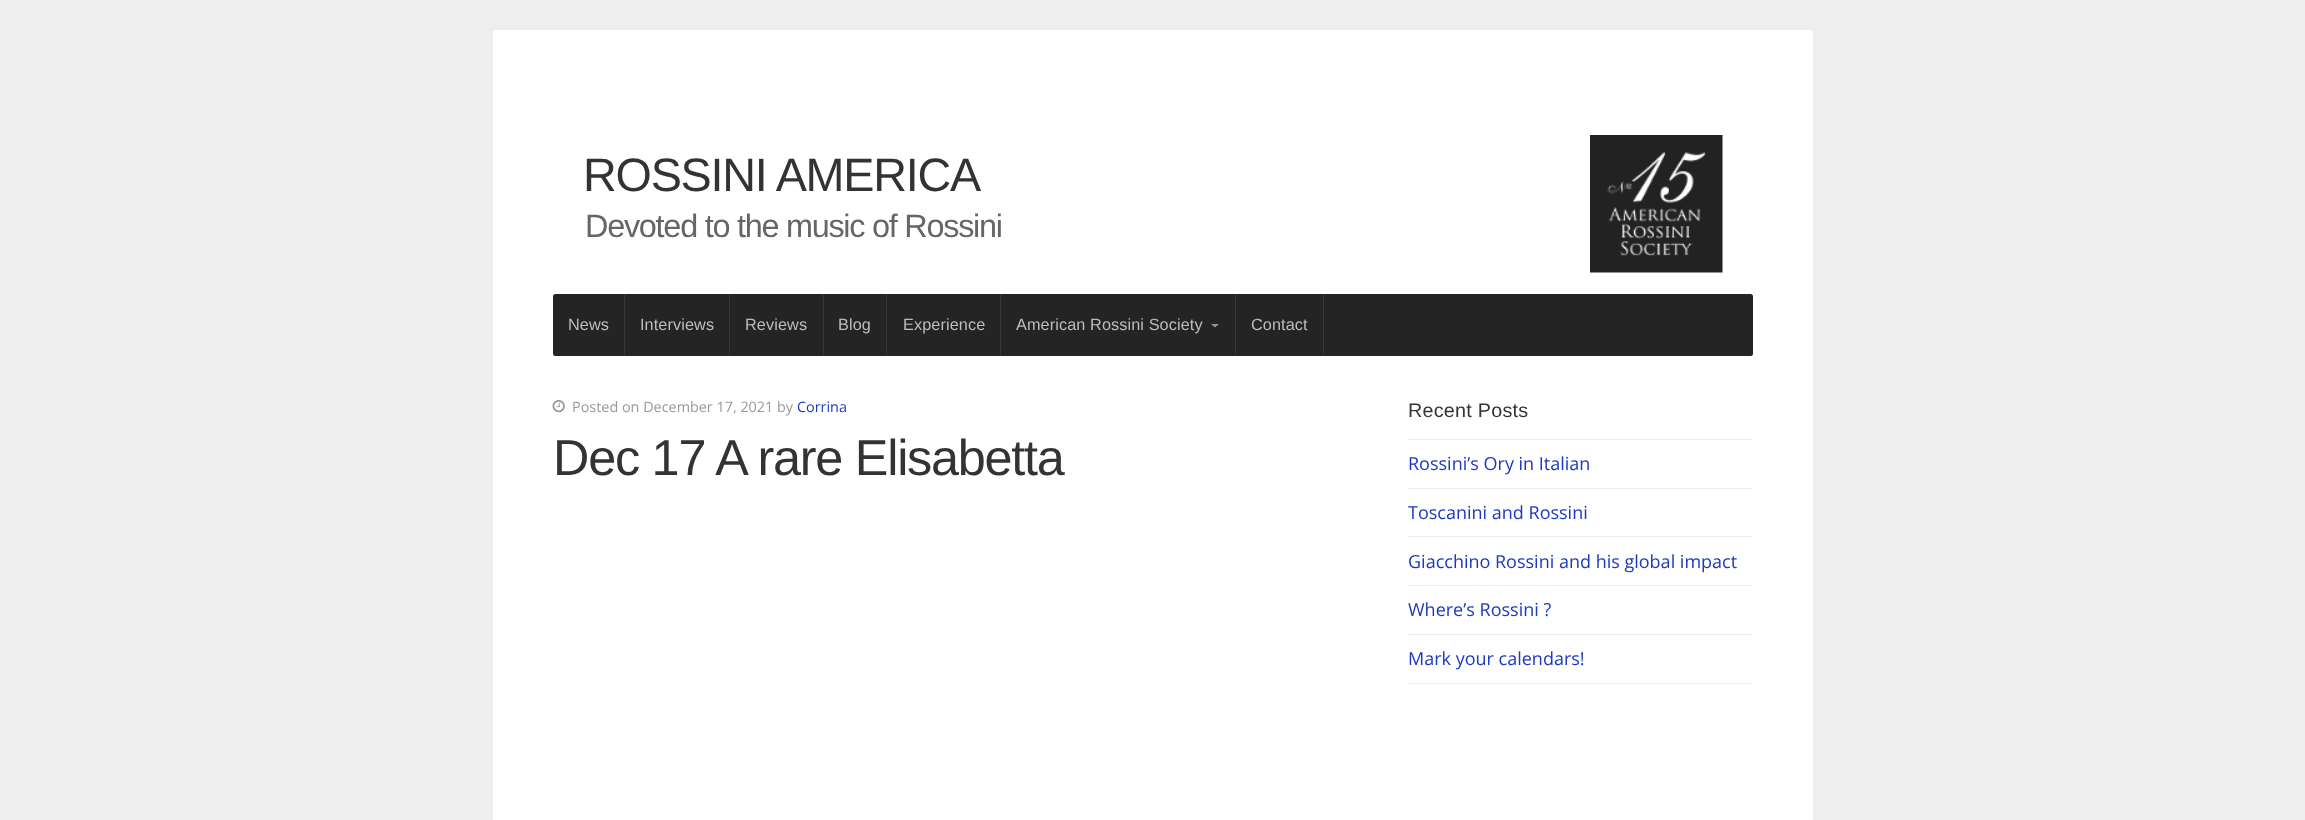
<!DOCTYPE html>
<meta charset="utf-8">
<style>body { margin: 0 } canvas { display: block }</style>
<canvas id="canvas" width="2305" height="820"></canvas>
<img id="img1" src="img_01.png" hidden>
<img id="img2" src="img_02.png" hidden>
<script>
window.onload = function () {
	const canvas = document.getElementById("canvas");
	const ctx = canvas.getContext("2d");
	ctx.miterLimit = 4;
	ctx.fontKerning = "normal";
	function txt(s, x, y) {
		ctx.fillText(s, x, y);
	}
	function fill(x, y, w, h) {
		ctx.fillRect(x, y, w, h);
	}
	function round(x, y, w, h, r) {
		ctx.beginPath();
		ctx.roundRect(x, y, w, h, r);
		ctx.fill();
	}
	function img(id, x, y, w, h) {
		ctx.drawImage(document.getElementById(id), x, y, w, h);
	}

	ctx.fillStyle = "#EEEEEE";
	fill(0, 0, 2305, 820);
	ctx.fillStyle = "rgba(0, 0, 0, 0.12)";
	ctx.filter = "blur(0.5px)";
	ctx.beginPath();
	ctx.roundRect(493, 31, 1320, 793, 2.5);
	ctx.fill();
	ctx.filter = "none";
	ctx.fillStyle = "#FFFFFF";
	round(493, 30, 1320, 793, 2.5);
	img("img1", 1590, 135, 133, 138);
	ctx.fillStyle = "#242424";
	round(553, 294, 1200, 62, 2.5);
	ctx.fillStyle = "#363636";
	fill(624, 294, 1, 62);
	fill(729, 294, 1, 62);
	fill(823, 294, 1, 62);
	fill(886, 294, 1, 62);
	fill(1000, 294, 1, 62);
	fill(1235, 294, 1, 62);
	ctx.fillStyle = "#929292";
	ctx.beginPath();
	ctx.moveTo(1211, 324);
	ctx.lineTo(1219, 324);
	ctx.lineTo(1215, 327.5);
	ctx.closePath();
	ctx.fill();
	ctx.fillStyle = "#363636";
	fill(1323, 294, 1, 62);
	img("img2", 552, 400, 13, 13);
	ctx.fillStyle = "#EBEBEB";
	fill(1408, 439, 345, 1);
	fill(1408, 488, 345, 1);
	fill(1408, 536, 345, 1);
	fill(1408, 585, 345, 1);
	fill(1408, 634, 345, 1);
	fill(1408, 683, 345, 1);
	ctx.letterSpacing = "-1.25px";
	ctx.font = "46.75px Liberation Sans";
	ctx.fillStyle = "#333333";
	txt("ROSSINI AMERICA", 583, 191);
	ctx.font = "32.4px Liberation Sans";
	ctx.fillStyle = "#666666";
	txt("Devoted to the music of Rossini", 585, 237);
	ctx.letterSpacing = "0.1px";
	ctx.font = "16.25px Liberation Sans";
	ctx.fillStyle = "#BDBDBD";
	txt("News", 568, 330);
	txt("Interviews", 640, 330);
	txt("Reviews", 745, 330);
	txt("Blog", 838, 330);
	txt("Experience", 903, 330);
	txt("American Rossini Society", 1016, 330);
	txt("Contact", 1251, 330);
	ctx.letterSpacing = "0px";
	ctx.font = "14.4px Open Sans";
	ctx.fillStyle = "#999999";
	txt("Posted on December 17, 2021 by", 572, 412);
	ctx.fillStyle = "#1B39BD";
	txt("Corrina", 797, 412);
	ctx.letterSpacing = "-1.25px";
	ctx.font = "50.4px Liberation Sans";
	ctx.fillStyle = "#333333";
	txt("Dec 17 A rare Elisabetta", 553, 475);
	ctx.letterSpacing = "0.25px";
	ctx.font = "19.75px Liberation Sans";
	txt("Recent Posts", 1408, 417);
	ctx.letterSpacing = "0px";
	ctx.font = "18px Open Sans";
	ctx.fillStyle = "#1B39BD";
	txt("Rossini’s Ory in Italian", 1408, 470);
	txt("Toscanini and Rossini", 1408, 519);
	txt("Giacchino Rossini and his global impact", 1408, 568);
	txt("Where’s Rossini ?", 1408, 616);
	txt("Mark your calendars!", 1408, 665);
};
</script>
